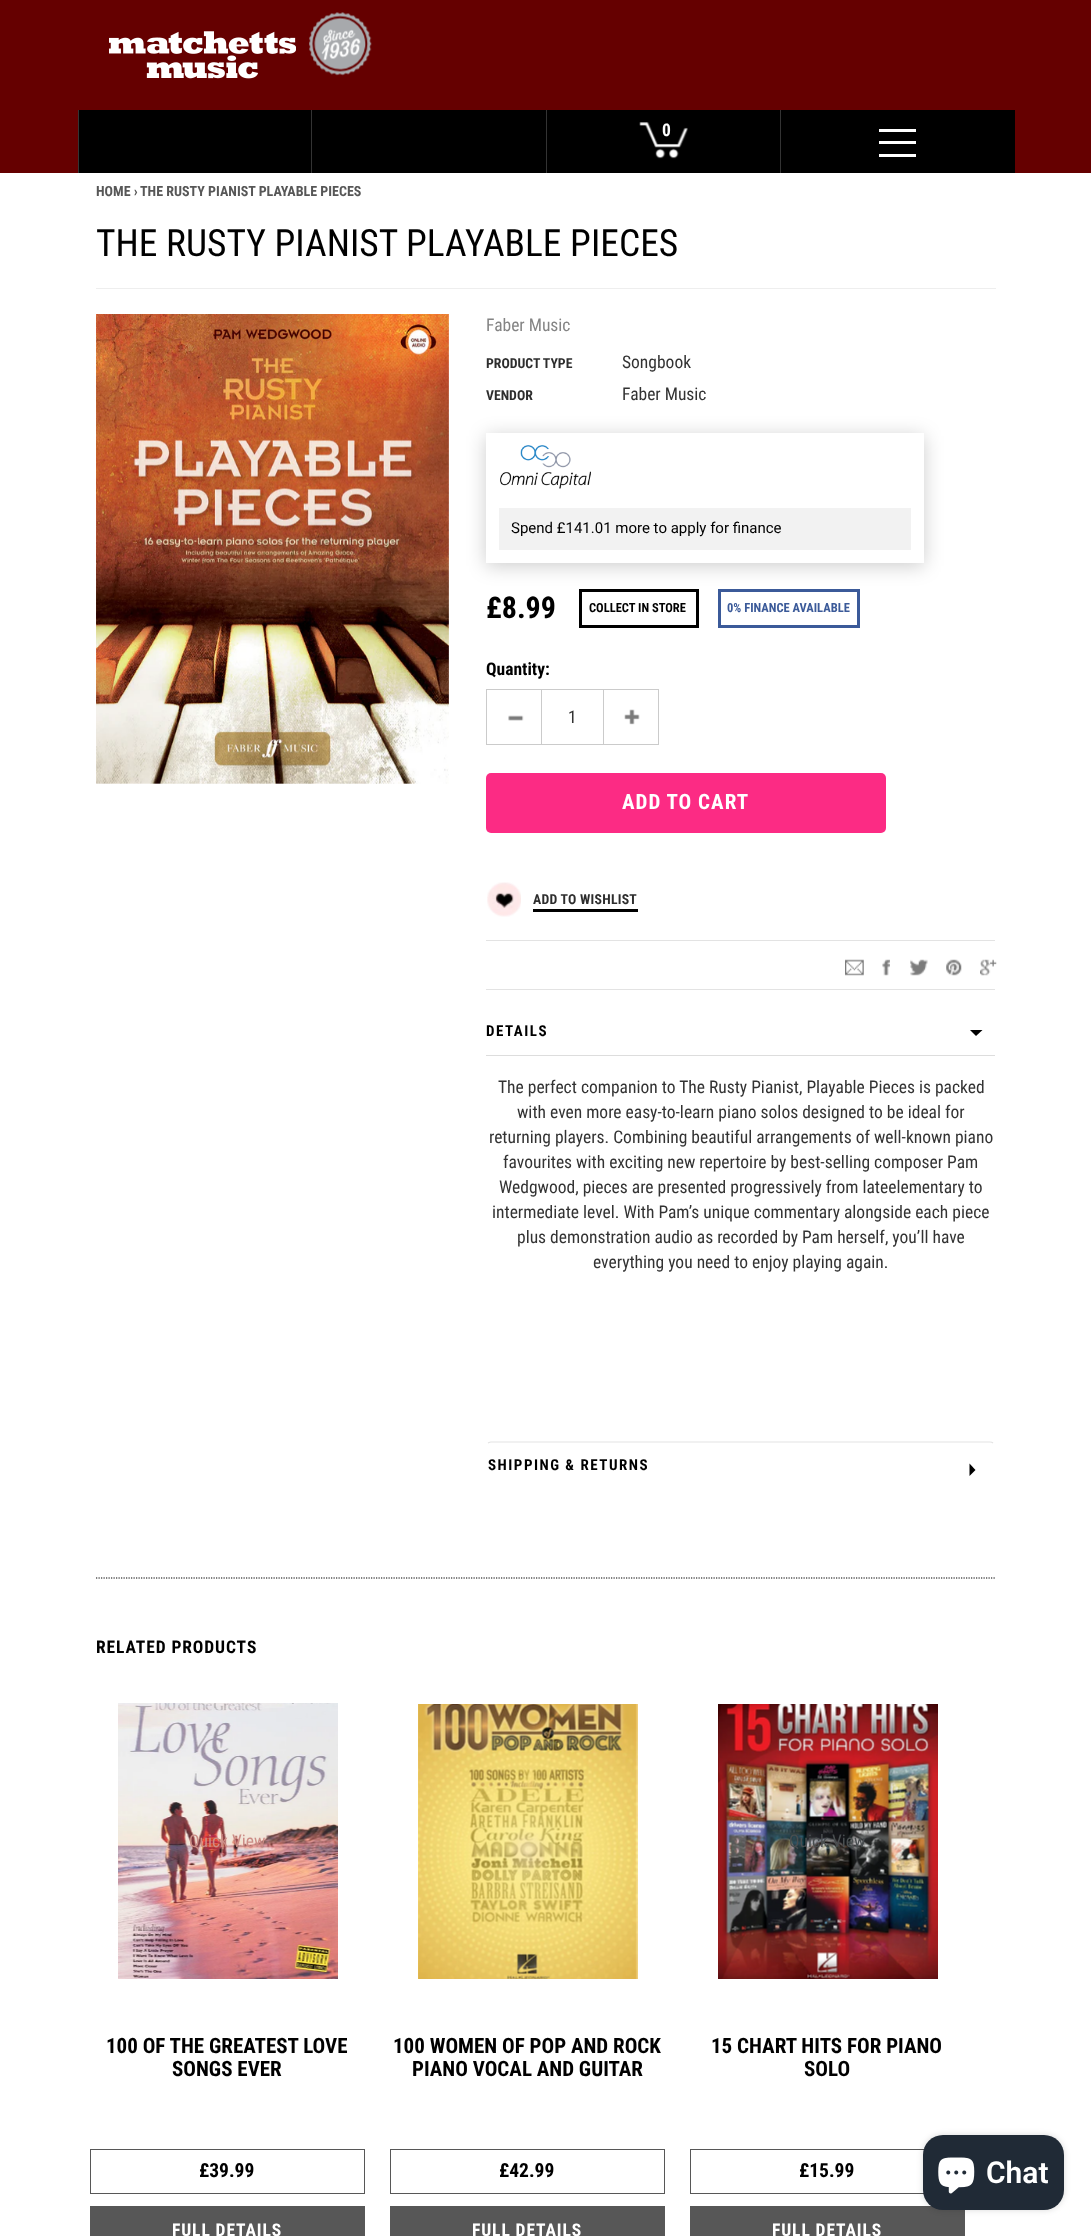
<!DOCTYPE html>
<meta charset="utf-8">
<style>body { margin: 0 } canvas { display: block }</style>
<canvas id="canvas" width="1091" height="2236"></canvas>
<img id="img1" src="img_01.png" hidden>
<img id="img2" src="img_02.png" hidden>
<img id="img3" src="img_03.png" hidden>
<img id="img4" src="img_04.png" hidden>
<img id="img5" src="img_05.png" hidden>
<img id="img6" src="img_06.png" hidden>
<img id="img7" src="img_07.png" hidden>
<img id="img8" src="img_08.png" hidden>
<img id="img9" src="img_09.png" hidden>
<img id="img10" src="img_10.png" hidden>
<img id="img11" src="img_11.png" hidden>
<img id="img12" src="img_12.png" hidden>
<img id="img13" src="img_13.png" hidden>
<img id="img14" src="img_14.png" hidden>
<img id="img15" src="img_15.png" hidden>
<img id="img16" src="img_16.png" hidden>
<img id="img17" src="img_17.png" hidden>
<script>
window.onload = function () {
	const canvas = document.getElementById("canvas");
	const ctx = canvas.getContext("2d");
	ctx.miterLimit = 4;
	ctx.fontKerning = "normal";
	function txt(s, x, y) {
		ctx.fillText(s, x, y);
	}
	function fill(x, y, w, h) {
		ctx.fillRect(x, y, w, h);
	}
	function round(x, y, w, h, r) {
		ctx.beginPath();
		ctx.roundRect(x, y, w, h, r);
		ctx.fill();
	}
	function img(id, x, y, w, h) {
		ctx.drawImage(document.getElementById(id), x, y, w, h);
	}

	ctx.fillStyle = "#FFFFFF";
	fill(0, 0, 1091, 2236);
	ctx.fillStyle = "#650000";
	fill(0, 0, 1091, 173);
	img("img1", 109, 31, 187, 48);
	img("img2", 309, 12, 63, 64);
	ctx.fillStyle = "#000000";
	fill(79, 110, 232, 63);
	ctx.fillStyle = "#333333";
	fill(78, 110, 1, 63);
	ctx.fillStyle = "#000000";
	fill(312, 110, 234, 63);
	ctx.fillStyle = "#333333";
	fill(311, 110, 1, 63);
	ctx.fillStyle = "#000000";
	fill(547, 110, 233, 63);
	ctx.fillStyle = "#333333";
	fill(546, 110, 1, 63);
	img("img3", 639, 122, 49, 37);
	ctx.fillStyle = "#000000";
	fill(781, 110, 234, 63);
	ctx.fillStyle = "#333333";
	fill(780, 110, 1, 63);
	ctx.fillStyle = "#FFFFFF";
	fill(879, 129, 37, 3);
	fill(879, 141, 37, 3);
	fill(879, 154, 37, 3);
	ctx.fillStyle = "#EEEEEE";
	fill(96, 288, 900, 1);
	img("img4", 96, 314, 353, 470);
	ctx.fillStyle = "rgba(0, 0, 0, 0.2)";
	ctx.filter = "blur(9.5px)";
	ctx.beginPath();
	ctx.rect(486, 436, 438, 130);
	ctx.fill();
	ctx.filter = "none";
	ctx.fillStyle = "#FFFFFF";
	fill(486, 433, 438, 130);
	img("img5", 500, 445, 91, 44);
	ctx.fillStyle = "#F2F2F2";
	fill(499, 508, 412, 42);
	ctx.strokeStyle = "#000000";
	ctx.lineWidth = 3;
	ctx.strokeRect(580.5, 590.5, 117, 36);
	ctx.strokeStyle = "#3B5A99";
	ctx.strokeRect(719.5, 590.5, 139, 36);
	img("img6", 508, 715, 16, 6);
	ctx.fillStyle = "#CBCBCB";
	fill(486, 689, 55, 1);
	fill(486, 744, 55, 1);
	fill(486, 689, 1, 56);
	ctx.strokeStyle = "#CBCBCB";
	ctx.lineWidth = 1;
	ctx.strokeRect(541.5, 689.5, 62, 55);
	img("img7", 624, 709, 16, 16);
	fill(604, 689, 55, 1);
	fill(658, 689, 1, 56);
	fill(604, 744, 55, 1);
	ctx.fillStyle = "#FC2B84";
	round(486, 773, 400, 60, 5);
	img("img8", 487, 882, 34, 35);
	ctx.fillStyle = "#000000";
	fill(533, 909, 105, 3);
	ctx.fillStyle = "#E3E3E3";
	fill(486, 940, 509, 1);
	fill(486, 989, 509, 1);
	img("img9", 845, 959, 19, 17);
	img("img10", 882, 959, 8, 17);
	img("img11", 910, 959, 18, 17);
	img("img12", 946, 959, 16, 17);
	img("img13", 980, 959, 17, 17);
	ctx.fillStyle = "#000000";
	ctx.beginPath();
	ctx.moveTo(970, 1030);
	ctx.lineTo(982.5, 1030);
	ctx.lineTo(976, 1036);
	ctx.closePath();
	ctx.fill();
	ctx.fillStyle = "#DDDDDD";
	fill(486, 1055, 509, 1);
	ctx.beginPath();
	ctx.moveTo(488, 1443);
	ctx.bezierCurveTo(489, 1442.5, 490, 1442, 491, 1442);
	ctx.lineTo(990, 1442);
	ctx.bezierCurveTo(991, 1442, 992.5, 1442.5, 993, 1443);
	ctx.strokeStyle = "#E3E3E3";
	ctx.lineWidth = 1.2;
	ctx.stroke();
	ctx.fillStyle = "#000000";
	ctx.beginPath();
	ctx.moveTo(969.5, 1476);
	ctx.lineTo(969.5, 1463.5);
	ctx.lineTo(975.5, 1470);
	ctx.closePath();
	ctx.fill();
	ctx.beginPath();
	ctx.moveTo(96, 1578);
	ctx.lineTo(996, 1578);
	ctx.strokeStyle = "#000000";
	ctx.setLineDash([1.25, 1.25]);
	ctx.stroke();
	img("img14", 118, 1703, 220, 276);
	ctx.strokeStyle = "#575757";
	ctx.lineWidth = 1;
	ctx.setLineDash([]);
	ctx.strokeRect(90.5, 2149.5, 274, 44);
	ctx.fillStyle = "#575757";
	fill(90, 2206, 275, 30);
	img("img15", 418, 1704, 220, 275);
	ctx.strokeRect(390.5, 2149.5, 274, 44);
	fill(390, 2206, 275, 30);
	img("img16", 718, 1704, 220, 275);
	ctx.strokeRect(690.5, 2149.5, 274, 44);
	fill(690, 2206, 275, 30);
	ctx.fillStyle = "rgba(0, 0, 0, 0.15)";
	ctx.filter = "blur(3px)";
	ctx.beginPath();
	ctx.roundRect(923, 2135, 141, 75, 20);
	ctx.fill();
	ctx.filter = "none";
	ctx.fillStyle = "#202A36";
	round(923, 2135, 141, 75, 20);
	img("img17", 938, 2157, 37, 37);
	ctx.font = "bold 17.5px Roboto Condensed";
	ctx.fillStyle = "#FFFFFF";
	txt("0", 662, 136);
	ctx.font = "bold 14px Roboto Condensed";
	ctx.fillStyle = "#575757";
	txt("HOME ›", 96, 196);
	txt("THE RUSTY PIANIST PLAYABLE PIECES", 140, 196);
	ctx.font = "37.5px Roboto Condensed";
	ctx.fillStyle = "#000000";
	txt("THE RUSTY PIANIST PLAYABLE PIECES", 96, 256);
	ctx.font = "17.5px Roboto Condensed";
	ctx.fillStyle = "#848484";
	txt("Faber Music", 486, 331);
	ctx.font = "bold 13.75px Roboto Condensed";
	ctx.fillStyle = "#2D2D2D";
	txt("PRODUCT TYPE", 486, 368);
	ctx.font = "17.5px Roboto Condensed";
	ctx.fillStyle = "#333333";
	txt("Songbook", 622, 368);
	ctx.font = "bold 13.75px Roboto Condensed";
	ctx.fillStyle = "#2D2D2D";
	txt("VENDOR", 486, 400);
	ctx.font = "17.5px Roboto Condensed";
	ctx.fillStyle = "#333333";
	txt("Faber Music", 622, 400);
	ctx.font = "15px Roboto";
	ctx.fillStyle = "#000000";
	txt("Spend £141.01 more to apply for finance", 511, 533);
	ctx.font = "bold 30px Roboto Condensed";
	txt("£8.99", 486, 618);
	ctx.font = "bold 12.5px Roboto Condensed";
	txt("COLLECT IN STORE", 589, 612);
	ctx.fillStyle = "#3B5A99";
	txt("0% FINANCE AVAILABLE", 727, 612);
	ctx.font = "bold 17.5px Roboto Condensed";
	ctx.fillStyle = "#000000";
	txt("Quantity:", 486, 675);
	ctx.font = "17.5px Roboto Condensed";
	ctx.fillStyle = "#333333";
	txt("1", 568, 723);
	ctx.letterSpacing = "1px";
	ctx.font = "bold 21px Roboto Condensed";
	ctx.fillStyle = "#FFFFFF";
	txt("ADD TO CART", 622, 809);
	ctx.letterSpacing = "0.25px";
	ctx.font = "bold 13.75px Roboto Condensed";
	ctx.fillStyle = "#2D2D2D";
	txt("ADD TO WISHLIST", 533, 904);
	ctx.letterSpacing = "1.5px";
	ctx.font = "bold 15px Roboto Condensed";
	ctx.fillStyle = "#000000";
	txt("DETAILS", 486, 1036);
	ctx.letterSpacing = "0px";
	ctx.font = "17.5px Roboto Condensed";
	ctx.fillStyle = "#333333";
	txt("The perfect companion to The Rusty Pianist, Playable Pieces is packed", 498, 1093);
	txt("with even more easy-to-learn piano solos designed to be ideal for", 517, 1118);
	txt("returning players. Combining beautiful arrangements of well-known piano", 489, 1143);
	txt("favourites with exciting new repertoire by best-selling composer Pam", 503, 1168);
	txt("Wedgwood, pieces are presented progressively from lateelementary to", 499, 1193);
	txt("intermediate level. With Pam’s unique commentary alongside each piece", 492, 1218);
	txt("plus demonstration audio as recorded by Pam herself, you’ll have", 517, 1243);
	txt("everything you need to enjoy playing again.", 593, 1268);
	ctx.letterSpacing = "1.5px";
	ctx.font = "bold 15px Roboto Condensed";
	ctx.fillStyle = "#000000";
	txt("SHIPPING & RETURNS", 488, 1470);
	ctx.letterSpacing = "0.9px";
	ctx.font = "bold 17.5px Roboto Condensed";
	txt("RELATED PRODUCTS", 96, 1653);
	ctx.letterSpacing = "0px";
	ctx.font = "17.5px Roboto Condensed";
	ctx.fillStyle = "#CC8D86";
	txt("Quick View", 189, 1847);
	ctx.font = "bold 21px Roboto Condensed";
	ctx.fillStyle = "#000000";
	txt("100 OF THE GREATEST LOVE", 106, 2053);
	txt("SONGS EVER", 172, 2076);
	ctx.font = "bold 19.5px Roboto Condensed";
	txt("£39.99", 199, 2177);
	ctx.letterSpacing = "0.9px";
	ctx.font = "bold 17.5px Roboto Condensed";
	ctx.fillStyle = "#FFFFFF";
	txt("FULL DETAILS", 172, 2236);
	ctx.letterSpacing = "0px";
	ctx.font = "bold 21px Roboto Condensed";
	ctx.fillStyle = "#000000";
	txt("100 WOMEN OF POP AND ROCK", 393, 2053);
	txt("PIANO VOCAL AND GUITAR", 412, 2076);
	ctx.font = "bold 19.5px Roboto Condensed";
	txt("£42.99", 499, 2177);
	ctx.letterSpacing = "0.9px";
	ctx.font = "bold 17.5px Roboto Condensed";
	ctx.fillStyle = "#FFFFFF";
	txt("FULL DETAILS", 472, 2236);
	ctx.letterSpacing = "0px";
	ctx.font = "17.5px Roboto Condensed";
	ctx.fillStyle = "#494E50";
	txt("Quick View", 789, 1847);
	ctx.font = "bold 21px Roboto Condensed";
	ctx.fillStyle = "#000000";
	txt("15 CHART HITS FOR PIANO", 711, 2053);
	txt("SOLO", 804, 2076);
	ctx.font = "bold 19.5px Roboto Condensed";
	txt("£15.99", 799, 2177);
	ctx.letterSpacing = "0.9px";
	ctx.font = "bold 17.5px Roboto Condensed";
	ctx.fillStyle = "#FFFFFF";
	txt("FULL DETAILS", 772, 2236);
	ctx.letterSpacing = "0px";
	ctx.font = "600 30px Roboto";
	txt("Chat", 986, 2183);
};
</script>
